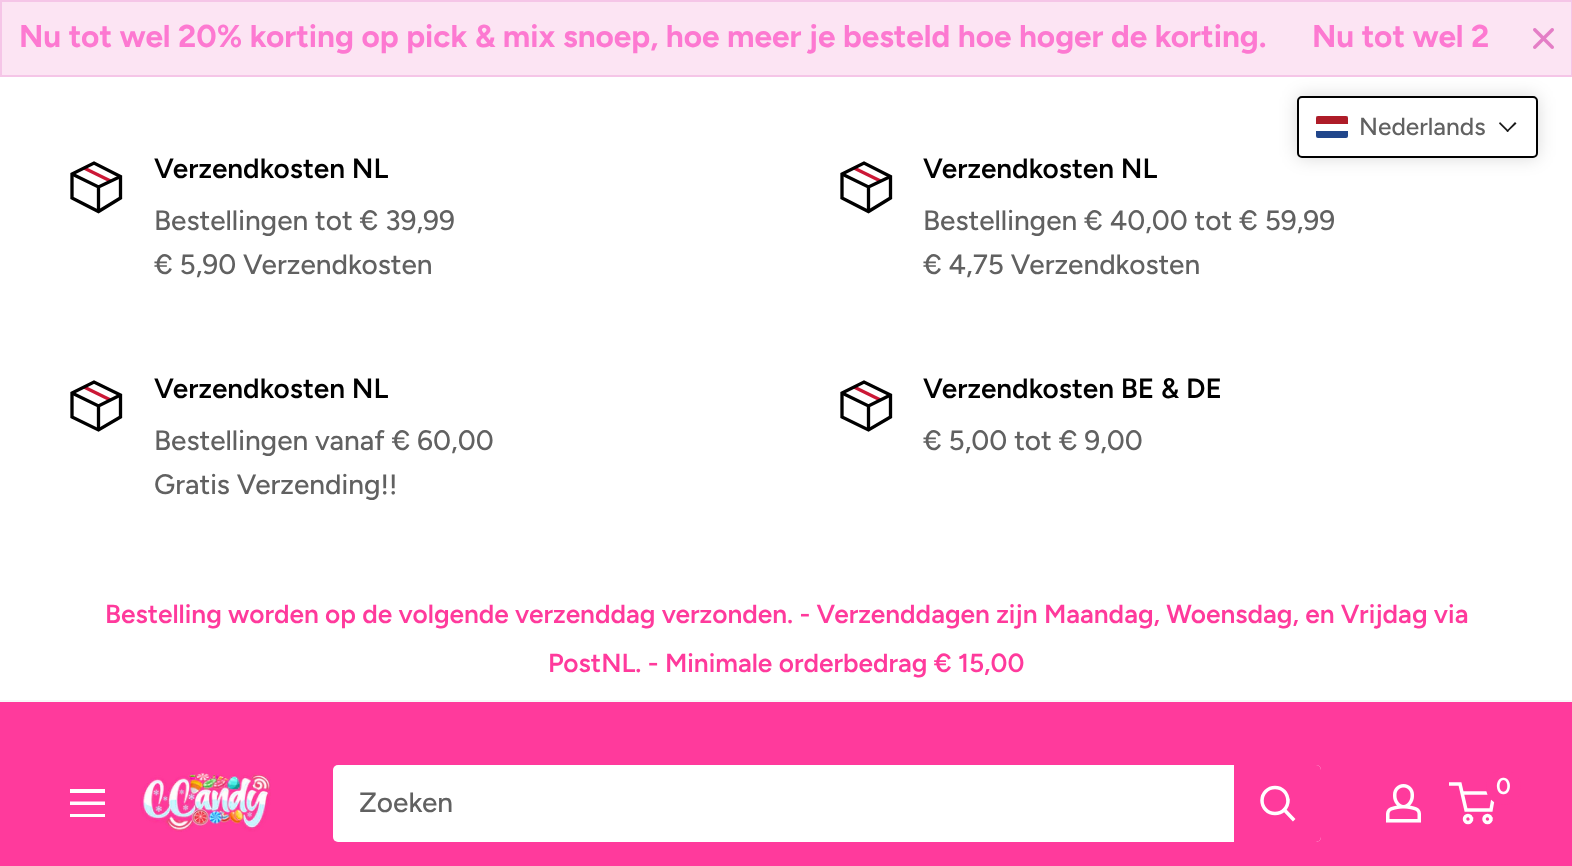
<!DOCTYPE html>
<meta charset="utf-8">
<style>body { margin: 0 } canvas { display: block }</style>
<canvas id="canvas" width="1572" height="866"></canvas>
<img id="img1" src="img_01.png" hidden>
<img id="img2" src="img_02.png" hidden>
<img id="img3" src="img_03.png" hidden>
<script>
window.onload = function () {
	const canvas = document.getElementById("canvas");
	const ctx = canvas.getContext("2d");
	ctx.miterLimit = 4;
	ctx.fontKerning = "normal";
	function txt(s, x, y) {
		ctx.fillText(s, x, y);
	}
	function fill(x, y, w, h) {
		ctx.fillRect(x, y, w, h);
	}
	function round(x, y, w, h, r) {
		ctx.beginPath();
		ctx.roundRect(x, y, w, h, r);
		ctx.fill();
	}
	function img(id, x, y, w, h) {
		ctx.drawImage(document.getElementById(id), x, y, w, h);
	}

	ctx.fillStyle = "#FFFFFF";
	fill(0, 0, 1572, 866);
	ctx.fillStyle = "#FCE4F3";
	ctx.beginPath();
	ctx.rect(1, 1, 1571, 75);
	ctx.fill();
	ctx.strokeStyle = "#F5C5E7";
	ctx.lineWidth = 2;
	ctx.stroke();
	img("img1", 1533, 28, 21, 21);
	ctx.fillStyle = "rgba(0, 0, 0, 0.15)";
	ctx.filter = "blur(9px)";
	ctx.beginPath();
	ctx.roundRect(1297, 96, 241, 62, 5);
	ctx.fill();
	ctx.filter = "none";
	ctx.fillStyle = "#FFFFFF";
	ctx.beginPath();
	ctx.roundRect(1298, 97, 239, 60, 4);
	ctx.fill();
	ctx.strokeStyle = "#000000";
	ctx.stroke();
	ctx.fillStyle = "#21468B";
	round(1316, 116, 32, 22, 2);
	ctx.fillStyle = "#FFFFFF";
	ctx.beginPath();
	ctx.roundRect(1316, 116, 32, 15, [2, 2, 0, 0]);
	ctx.fill();
	ctx.fillStyle = "#AE1C28";
	ctx.beginPath();
	ctx.roundRect(1316, 116, 32, 8, [2, 2, 0, 0]);
	ctx.fill();
	ctx.fillStyle = "#1A1A1A";
	ctx.beginPath();
	ctx.moveTo(1515, 122);
	ctx.lineTo(1516.5, 123.5);
	ctx.lineTo(1507.5, 132);
	ctx.lineTo(1506.5, 131);
	ctx.closePath();
	ctx.fill();
	ctx.beginPath();
	ctx.moveTo(1500, 122);
	ctx.lineTo(1509, 131);
	ctx.lineTo(1507.5, 132);
	ctx.lineTo(1499, 123.5);
	ctx.closePath();
	ctx.fill();
	ctx.beginPath();
	ctx.moveTo(84, 168);
	ctx.lineTo(110.5, 181);
	ctx.strokeStyle = "#CB1836";
	ctx.lineWidth = 3.3;
	ctx.stroke();
	ctx.beginPath();
	ctx.moveTo(120.5, 176.5);
	ctx.lineTo(98.5, 187);
	ctx.lineTo(72, 174);
	ctx.moveTo(98.5, 187);
	ctx.lineTo(98.5, 211.5);
	ctx.strokeStyle = "#000000";
	ctx.stroke();
	ctx.beginPath();
	ctx.moveTo(120.5, 176.5);
	ctx.lineTo(120.5, 198);
	ctx.lineTo(98.5, 211.5);
	ctx.lineTo(72, 198);
	ctx.lineTo(72, 174);
	ctx.lineTo(94, 163);
	ctx.closePath();
	ctx.lineCap = "square";
	ctx.stroke();
	ctx.beginPath();
	ctx.moveTo(854, 168);
	ctx.lineTo(880.5, 181);
	ctx.strokeStyle = "#CB1836";
	ctx.lineCap = "butt";
	ctx.stroke();
	ctx.beginPath();
	ctx.moveTo(890.5, 176.5);
	ctx.lineTo(868.5, 187);
	ctx.lineTo(842, 174);
	ctx.moveTo(868.5, 187);
	ctx.lineTo(868.5, 211.5);
	ctx.strokeStyle = "#000000";
	ctx.stroke();
	ctx.beginPath();
	ctx.moveTo(890.5, 176.5);
	ctx.lineTo(890.5, 198);
	ctx.lineTo(868.5, 211.5);
	ctx.lineTo(842, 198);
	ctx.lineTo(842, 174);
	ctx.lineTo(864, 163);
	ctx.closePath();
	ctx.lineCap = "square";
	ctx.stroke();
	ctx.beginPath();
	ctx.moveTo(84, 387);
	ctx.lineTo(110.5, 400);
	ctx.strokeStyle = "#CB1836";
	ctx.lineCap = "butt";
	ctx.stroke();
	ctx.beginPath();
	ctx.moveTo(120.5, 395);
	ctx.lineTo(98.5, 406);
	ctx.lineTo(72, 393);
	ctx.moveTo(98.5, 406);
	ctx.lineTo(98.5, 430);
	ctx.strokeStyle = "#000000";
	ctx.stroke();
	ctx.beginPath();
	ctx.moveTo(120.5, 395);
	ctx.lineTo(120.5, 417);
	ctx.lineTo(98.5, 430);
	ctx.lineTo(72, 417);
	ctx.lineTo(72, 393);
	ctx.lineTo(94, 382);
	ctx.closePath();
	ctx.lineCap = "square";
	ctx.stroke();
	ctx.beginPath();
	ctx.moveTo(854, 387);
	ctx.lineTo(880.5, 400);
	ctx.strokeStyle = "#CB1836";
	ctx.lineCap = "butt";
	ctx.stroke();
	ctx.beginPath();
	ctx.moveTo(890.5, 395);
	ctx.lineTo(868.5, 406);
	ctx.lineTo(842, 393);
	ctx.moveTo(868.5, 406);
	ctx.lineTo(868.5, 430);
	ctx.strokeStyle = "#000000";
	ctx.stroke();
	ctx.beginPath();
	ctx.moveTo(890.5, 395);
	ctx.lineTo(890.5, 417);
	ctx.lineTo(868.5, 430);
	ctx.lineTo(842, 417);
	ctx.lineTo(842, 393);
	ctx.lineTo(864, 382);
	ctx.closePath();
	ctx.lineCap = "square";
	ctx.stroke();
	ctx.fillStyle = "#F8F8F8";
	fill(0, 700, 1572, 2);
	ctx.fillStyle = "#FF3A9C";
	fill(0, 702, 1572, 164);
	img("img2", 140, 772, 131, 60);
	img("img3", 1386, 784, 35, 39);
	ctx.beginPath();
	ctx.arc(1468, 819, 3.5, 0, Math.PI * 2);
	ctx.strokeStyle = "#FFFFFF";
	ctx.lineWidth = 3.5;
	ctx.stroke();
	ctx.beginPath();
	ctx.arc(1487.5, 819, 3.5, 0, Math.PI * 2);
	ctx.stroke();
	ctx.beginPath();
	ctx.moveTo(1462, 793);
	ctx.lineTo(1494, 793);
	ctx.lineTo(1491, 810);
	ctx.lineTo(1466, 810);
	ctx.lineTo(1460, 784);
	ctx.lineTo(1449, 784);
	ctx.lineCap = "butt";
	ctx.stroke();
	ctx.beginPath();
	ctx.arc(1503.5, 787.5, 17.5, 0, Math.PI * 2);
	ctx.fill();
	ctx.fillStyle = "#FFFFFF";
	ctx.beginPath();
	ctx.moveTo(70, 814);
	ctx.lineTo(105, 814);
	ctx.lineTo(105, 817);
	ctx.lineTo(70, 817);
	ctx.closePath();
	ctx.moveTo(70, 789);
	ctx.lineTo(105, 789);
	ctx.lineTo(105, 793);
	ctx.lineTo(70, 793);
	ctx.closePath();
	ctx.moveTo(70, 801.5);
	ctx.lineTo(105, 801.5);
	ctx.lineTo(105, 805);
	ctx.lineTo(70, 805);
	ctx.closePath();
	ctx.fill("evenodd");
	round(333, 765, 988, 77, 5);
	ctx.fillStyle = "#FF3A9C";
	ctx.beginPath();
	ctx.roundRect(1234, 765, 87, 77, [0, 5, 5, 0]);
	ctx.fill();
	ctx.beginPath();
	ctx.moveTo(1293, 819);
	ctx.lineTo(1284.5, 810);
	ctx.lineCap = "square";
	ctx.stroke();
	ctx.beginPath();
	ctx.arc(1275, 800.5, 13, 0, Math.PI * 2);
	ctx.stroke();
	ctx.font = "bold 31.5px Figtree";
	ctx.fillStyle = "#FD79D1";
	txt("Nu tot wel 20% korting op pick & mix snoep, hoe meer je besteld hoe hoger de korting.", 19, 47);
	ctx.save();
	ctx.beginPath();
	ctx.rect(19, 19, 1469, 39);
	ctx.clip();
	txt("Nu tot wel 2", 1312, 47);
	ctx.restore();
	ctx.font = "500 24.5px Figtree";
	ctx.fillStyle = "#616161";
	txt("Nederlands", 1359, 135);
	ctx.font = "600 28px Figtree";
	ctx.fillStyle = "#000000";
	txt("Verzendkosten NL", 154, 178);
	ctx.font = "500 28px Figtree";
	ctx.fillStyle = "#616161";
	txt("Bestellingen tot € 39,99", 154, 230);
	txt("€ 5,90 Verzendkosten", 154, 274);
	ctx.font = "600 28px Figtree";
	ctx.fillStyle = "#000000";
	txt("Verzendkosten NL", 923, 178);
	ctx.font = "500 28px Figtree";
	ctx.fillStyle = "#616161";
	txt("Bestellingen € 40,00 tot € 59,99", 923, 230);
	txt("€ 4,75 Verzendkosten", 923, 274);
	ctx.font = "600 28px Figtree";
	ctx.fillStyle = "#000000";
	txt("Verzendkosten NL", 154, 398);
	ctx.font = "500 28px Figtree";
	ctx.fillStyle = "#616161";
	txt("Bestellingen vanaf € 60,00", 154, 450);
	txt("Gratis Verzending!!", 154, 494);
	ctx.font = "600 28px Figtree";
	ctx.fillStyle = "#000000";
	txt("Verzendkosten BE & DE", 923, 398);
	ctx.font = "500 28px Figtree";
	ctx.fillStyle = "#616161";
	txt("€ 5,00 tot € 9,00", 923, 450);
	ctx.font = "600 26.25px Figtree";
	ctx.fillStyle = "#FF3A9C";
	txt("Bestelling worden op de volgende verzenddag verzonden. - Verzenddagen zijn Maandag, Woensdag, en Vrijdag via", 105, 623);
	txt("PostNL. - Minimale orderbedrag € 15,00", 548, 672);
	ctx.font = "600 23px Figtree";
	ctx.fillStyle = "#FFFFFF";
	txt("0", 1496, 794);
	ctx.font = "500 28px Figtree";
	ctx.fillStyle = "#616161";
	txt("Zoeken", 359, 812);
};
</script>
